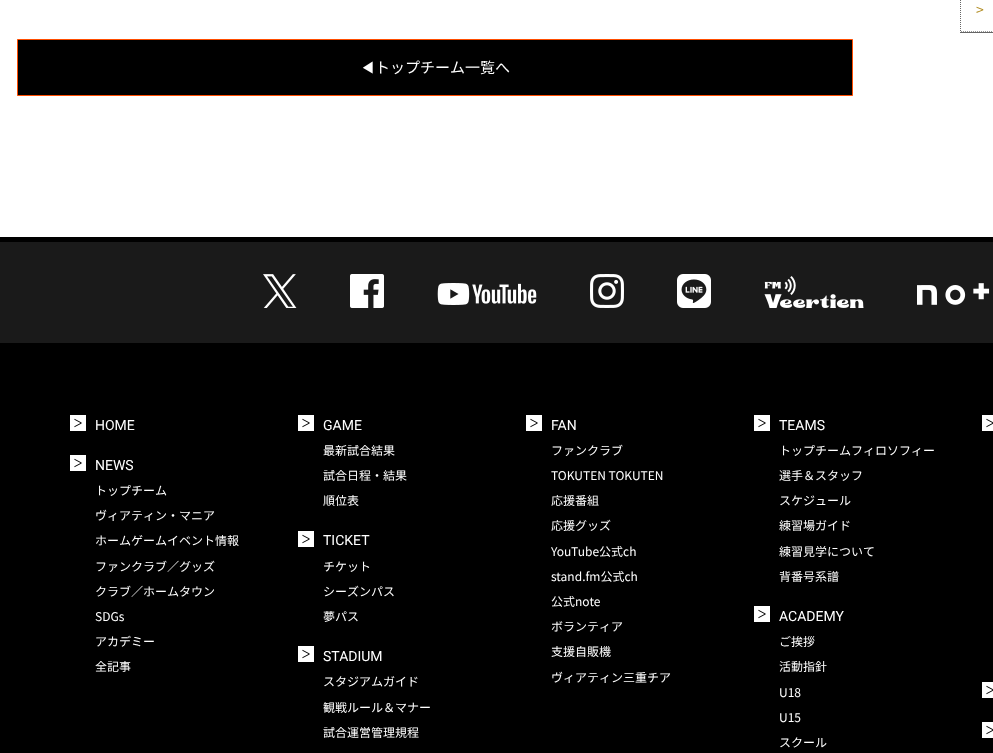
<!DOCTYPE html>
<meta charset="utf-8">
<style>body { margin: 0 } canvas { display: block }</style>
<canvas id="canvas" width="993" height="753"></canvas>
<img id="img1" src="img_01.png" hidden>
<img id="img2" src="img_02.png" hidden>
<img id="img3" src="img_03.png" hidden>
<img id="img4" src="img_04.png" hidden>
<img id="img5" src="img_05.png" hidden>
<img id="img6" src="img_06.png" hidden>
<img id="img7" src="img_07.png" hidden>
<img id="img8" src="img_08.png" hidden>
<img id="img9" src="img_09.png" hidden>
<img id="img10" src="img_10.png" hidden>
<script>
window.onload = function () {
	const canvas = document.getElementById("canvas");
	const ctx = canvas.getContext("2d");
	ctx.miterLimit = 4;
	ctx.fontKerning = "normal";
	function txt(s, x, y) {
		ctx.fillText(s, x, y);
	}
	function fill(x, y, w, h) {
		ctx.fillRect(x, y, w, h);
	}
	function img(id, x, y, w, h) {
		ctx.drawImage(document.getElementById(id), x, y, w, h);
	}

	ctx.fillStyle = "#000000";
	fill(0, 0, 993, 753);
	ctx.fillStyle = "#FFFFFF";
	fill(0, 0, 993, 237);
	ctx.fillStyle = "#666666";
	fill(960, 32, 33, 1);
	ctx.beginPath();
	ctx.moveTo(960.5, -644);
	ctx.lineTo(960.5, 32);
	ctx.strokeStyle = "#666666";
	ctx.setLineDash([1, 1]);
	ctx.stroke();
	ctx.beginPath();
	ctx.moveTo(961, 31.5);
	ctx.lineTo(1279, 31.5);
	ctx.strokeStyle = "#999999";
	ctx.stroke();
	ctx.fillStyle = "#000000";
	ctx.beginPath();
	ctx.rect(17.5, 39.5, 835, 56);
	ctx.fill();
	ctx.strokeStyle = "#FF4D00";
	ctx.setLineDash([]);
	ctx.stroke();
	ctx.fillStyle = "#1A1A1A";
	fill(0, 242, 993, 101);
	img("img1", 263, 274, 34, 34);
	img("img2", 350, 274, 34, 34);
	img("img3", 437, 283, 100, 22);
	img("img4", 590, 274, 34, 34);
	img("img5", 677, 274, 34, 34);
	img("img6", 764, 276, 100, 32);
	img("img7", 917, 283, 73, 22);
	img("img8", 70, 415, 16, 16);
	img("img8", 70, 455, 16, 16);
	img("img8", 298, 415, 16, 16);
	img("img8", 298, 531, 16, 16);
	img("img8", 298, 646, 16, 16);
	img("img8", 526, 415, 16, 16);
	img("img9", 754, 415, 16, 16);
	img("img9", 754, 606, 16, 16);
	img("img10", 982, 415, 11, 16);
	img("img10", 982, 682, 11, 16);
	img("img10", 982, 722, 11, 16);
	ctx.font = "14px Noto Sans JP";
	ctx.fillStyle = "#B28D23";
	txt(">︎", 976, 15);
	ctx.font = "500 15px WenQuanYi Zen Hei";
	ctx.fillStyle = "#FFFFFF";
	txt("◀︎", 360, 73);
	ctx.font = "15px Noto Sans JP";
	txt("トップチーム一覧へ", 375, 73);
	ctx.font = "14px Roboto";
	txt("HOME", 95, 430);
	txt("NEWS", 95, 470);
	ctx.font = "12px Noto Sans JP";
	txt("トップチーム", 95, 495);
	txt("ヴィアティン・マニア", 95, 520);
	txt("ホームゲームイベント情報", 95, 545);
	txt("ファンクラブ／グッズ", 95, 571);
	txt("クラブ／ホームタウン", 95, 596);
	txt("SDGs", 95, 621);
	txt("アカデミー", 95, 646);
	txt("全記事", 95, 671);
	ctx.font = "14px Roboto";
	txt("GAME", 323, 430);
	ctx.font = "12px Noto Sans JP";
	txt("最新試合結果", 323, 455);
	txt("試合日程・結果", 323, 480);
	txt("順位表", 323, 505);
	ctx.font = "14px Roboto";
	txt("TICKET", 323, 545);
	ctx.font = "12px Noto Sans JP";
	txt("チケット", 323, 571);
	txt("シーズンパス", 323, 596);
	txt("夢パス", 323, 621);
	ctx.font = "14px Roboto";
	txt("STADIUM", 323, 661);
	ctx.font = "12px Noto Sans JP";
	txt("スタジアムガイド", 323, 686);
	txt("観戦ルール＆マナー", 323, 712);
	txt("試合運営管理規程", 323, 737);
	ctx.font = "14px Roboto";
	txt("FAN", 551, 430);
	ctx.font = "12px Noto Sans JP";
	txt("ファンクラブ", 551, 455);
	txt("TOKUTEN TOKUTEN", 551, 480);
	txt("応援番組", 551, 505);
	txt("応援グッズ", 551, 530);
	txt("YouTube公式ch", 551, 556);
	txt("stand.fm公式ch", 551, 581);
	txt("公式note", 551, 606);
	txt("ボランティア", 551, 631);
	txt("支援自販機", 551, 656);
	txt("ヴィアティン三重チア", 551, 682);
	ctx.font = "14px Roboto";
	txt("TEAMS", 779, 430);
	ctx.font = "12px Noto Sans JP";
	txt("トップチームフィロソフィー", 779, 455);
	txt("選手＆スタッフ", 779, 480);
	txt("スケジュール", 779, 505);
	txt("練習場ガイド", 779, 530);
	txt("練習見学について", 779, 556);
	txt("背番号系譜", 779, 581);
	ctx.font = "14px Roboto";
	txt("ACADEMY", 779, 621);
	ctx.font = "12px Noto Sans JP";
	txt("ご挨拶", 779, 646);
	txt("活動指針", 779, 671);
	txt("U18", 779, 697);
	txt("U15", 779, 722);
	txt("スクール", 779, 747);
};
</script>
